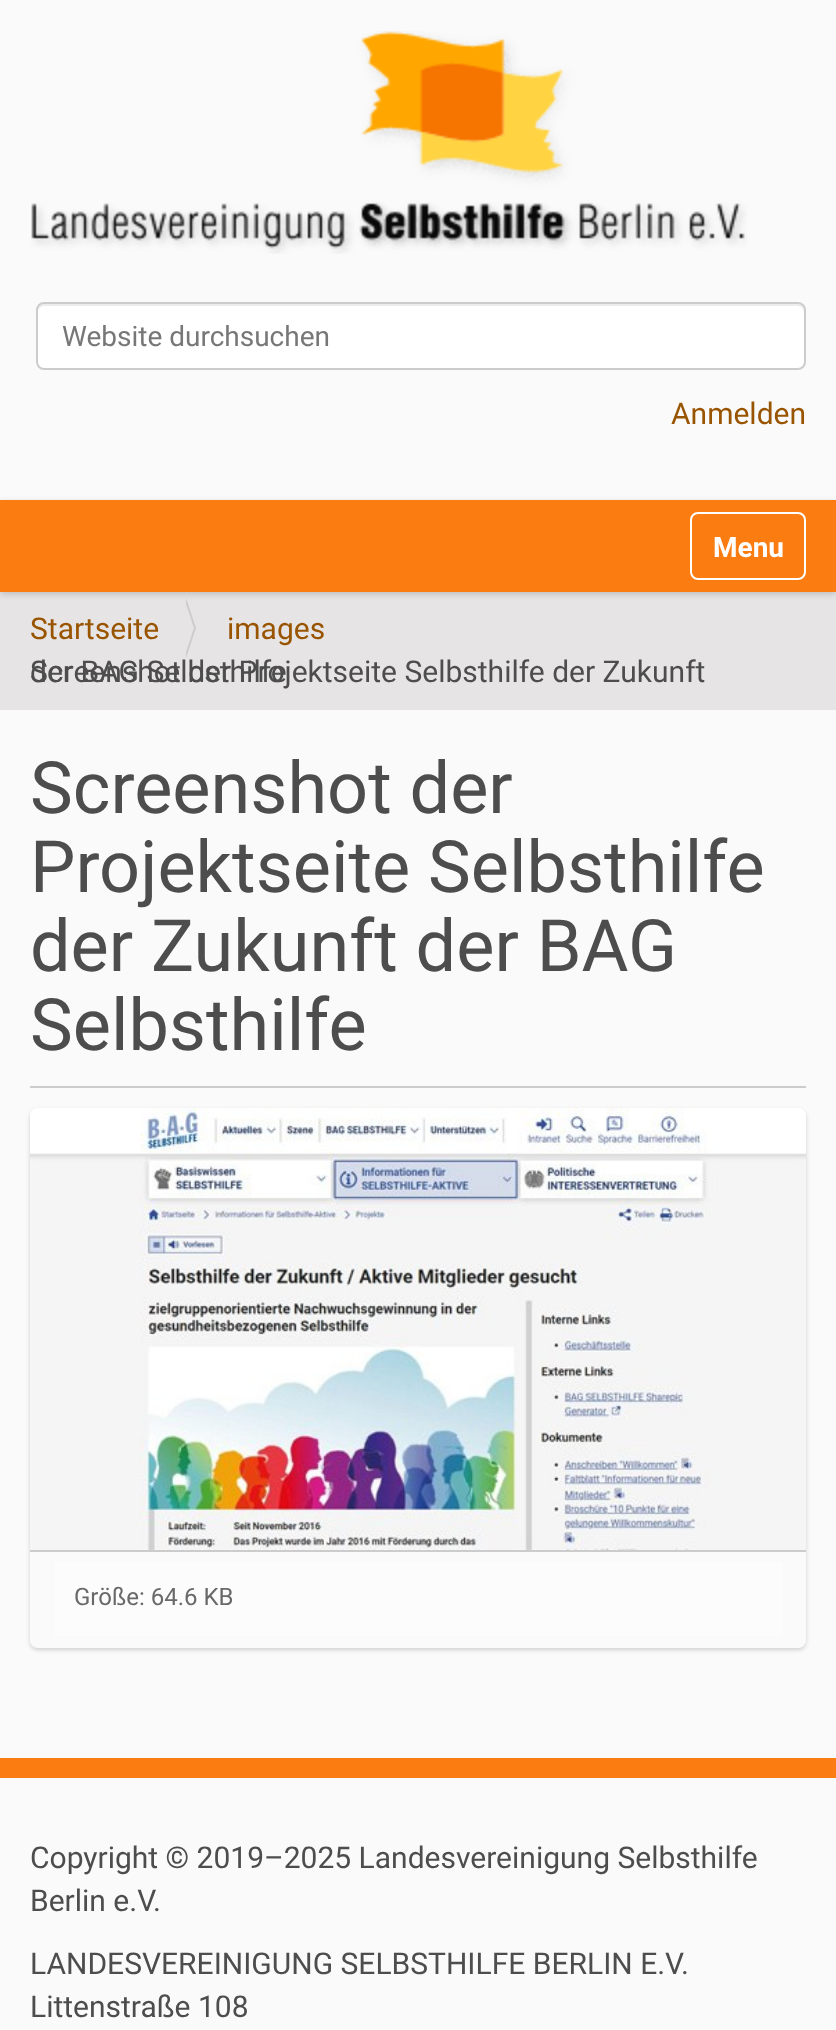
<!DOCTYPE html>
<meta charset="utf-8">
<style>body { margin: 0 } canvas { display: block }</style>
<canvas id="canvas" width="836" height="2030"></canvas>
<img id="img1" src="img_01.png" hidden>
<img id="img2" src="img_02.png" hidden>
<script>
window.onload = function () {
	const canvas = document.getElementById("canvas");
	const ctx = canvas.getContext("2d");
	ctx.miterLimit = 4;
	ctx.fontKerning = "normal";
	function txt(s, x, y) {
		ctx.fillText(s, x, y);
	}
	function fill(x, y, w, h) {
		ctx.fillRect(x, y, w, h);
	}
	function round(x, y, w, h, r) {
		ctx.beginPath();
		ctx.roundRect(x, y, w, h, r);
		ctx.fill();
	}
	function img(id, x, y, w, h) {
		ctx.drawImage(document.getElementById(id), x, y, w, h);
	}

	ctx.fillStyle = "#FAFAFA";
	fill(0, 0, 836, 2030);
	img("img1", 31, 31, 716, 223);
	ctx.fillStyle = "#FFFFFF";
	round(36, 302, 770, 68, 8);
	ctx.fillStyle = "#ECECEC";
	ctx.beginPath();
	ctx.moveTo(44, 306);
	ctx.lineTo(798, 306);
	ctx.bezierCurveTo(801, 306, 804, 309, 804, 312);
	ctx.lineTo(804, 310);
	ctx.bezierCurveTo(804, 307, 801, 304, 798, 304);
	ctx.lineTo(44, 304);
	ctx.bezierCurveTo(41, 304, 38, 307, 38, 310);
	ctx.lineTo(38, 312);
	ctx.bezierCurveTo(38, 309, 41, 306, 44, 306);
	ctx.closePath();
	ctx.fill();
	ctx.beginPath();
	ctx.roundRect(37, 303, 768, 66, 7);
	ctx.strokeStyle = "#CCCCCC";
	ctx.lineWidth = 2;
	ctx.stroke();
	ctx.fillStyle = "#E6E4E4";
	fill(0, 592, 836, 118);
	ctx.fillStyle = "rgba(0, 0, 0, 0.17)";
	ctx.filter = "blur(3px)";
	ctx.beginPath();
	ctx.rect(0, 502, 836, 92);
	ctx.fill();
	ctx.filter = "none";
	ctx.fillStyle = "#FB7C11";
	fill(0, 500, 836, 92);
	ctx.beginPath();
	ctx.roundRect(691, 513, 114, 66, 7);
	ctx.strokeStyle = "#FFFFFF";
	ctx.stroke();
	ctx.fillStyle = "#CCCCCC";
	ctx.beginPath();
	ctx.moveTo(186, 658);
	ctx.lineTo(186, 598);
	ctx.lineTo(196, 628);
	ctx.closePath();
	ctx.fill();
	ctx.fillStyle = "#E6E4E4";
	ctx.beginPath();
	ctx.moveTo(184, 658);
	ctx.lineTo(184, 598);
	ctx.lineTo(194, 628);
	ctx.closePath();
	ctx.fill();
	ctx.fillStyle = "#CCCCCC";
	fill(30, 1086, 776, 2);
	ctx.save();
	ctx.beginPath();
	ctx.moveTo(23, 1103);
	ctx.lineTo(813, 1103);
	ctx.lineTo(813, 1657);
	ctx.lineTo(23, 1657);
	ctx.closePath();
	ctx.moveTo(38, 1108);
	ctx.lineTo(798, 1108);
	ctx.bezierCurveTo(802.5, 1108, 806, 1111.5, 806, 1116);
	ctx.lineTo(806, 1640);
	ctx.bezierCurveTo(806, 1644.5, 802.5, 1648, 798, 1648);
	ctx.lineTo(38, 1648);
	ctx.bezierCurveTo(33.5, 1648, 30, 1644.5, 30, 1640);
	ctx.lineTo(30, 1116);
	ctx.bezierCurveTo(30, 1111.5, 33.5, 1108, 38, 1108);
	ctx.closePath();
	ctx.clip("evenodd");
	ctx.fillStyle = "rgba(0, 0, 0, 0.17)";
	ctx.filter = "blur(2px)";
	ctx.beginPath();
	ctx.roundRect(30, 1110, 776, 540, 8);
	ctx.fill();
	ctx.filter = "none";
	ctx.restore();
	fill(30, 1550, 776, 2);
	img("img2", 30, 1108, 776, 442);
	ctx.fillStyle = "#FCFCFD";
	fill(54, 1562, 728, 74);
	ctx.fillStyle = "#FB7C11";
	fill(0, 1758, 836, 20);
	ctx.font = "28px Roboto";
	ctx.fillStyle = "#777777";
	txt("Website durchsuchen", 62, 346);
	ctx.font = "30px Roboto";
	ctx.fillStyle = "#995400";
	txt("Anmelden", 671, 424);
	ctx.font = "bold 28px Roboto";
	ctx.fillStyle = "#FFFFFF";
	txt("Menu", 713, 557);
	ctx.font = "30px Roboto";
	ctx.fillStyle = "#995400";
	txt("Startseite", 30, 639);
	txt("images", 227, 639);
	ctx.fillStyle = "#4D4D4D";
	txt("Screenshot der Projektseite Selbsthilfe der Zukunft", 30, 682);
	txt("der BAG Selbsthilfe", 30, 682);
	ctx.font = "72px Roboto";
	txt("Screenshot der", 30, 813);
	txt("Projektseite Selbsthilfe", 30, 892);
	txt("der Zukunft der BAG", 30, 971);
	txt("Selbsthilfe", 30, 1050);
	ctx.font = "24px Roboto";
	ctx.fillStyle = "#696969";
	txt("Größe: 64.6 KB", 74, 1605);
	ctx.font = "30px Roboto";
	ctx.fillStyle = "#4D4D4D";
	txt("Copyright © 2019–2025 Landesvereinigung Selbsthilfe", 30, 1868);
	txt("Berlin e.V.", 30, 1911);
	txt("LANDESVEREINIGUNG SELBSTHILFE BERLIN E.V.", 30, 1974);
	txt("Littenstraße 108", 30, 2017);
};
</script>
